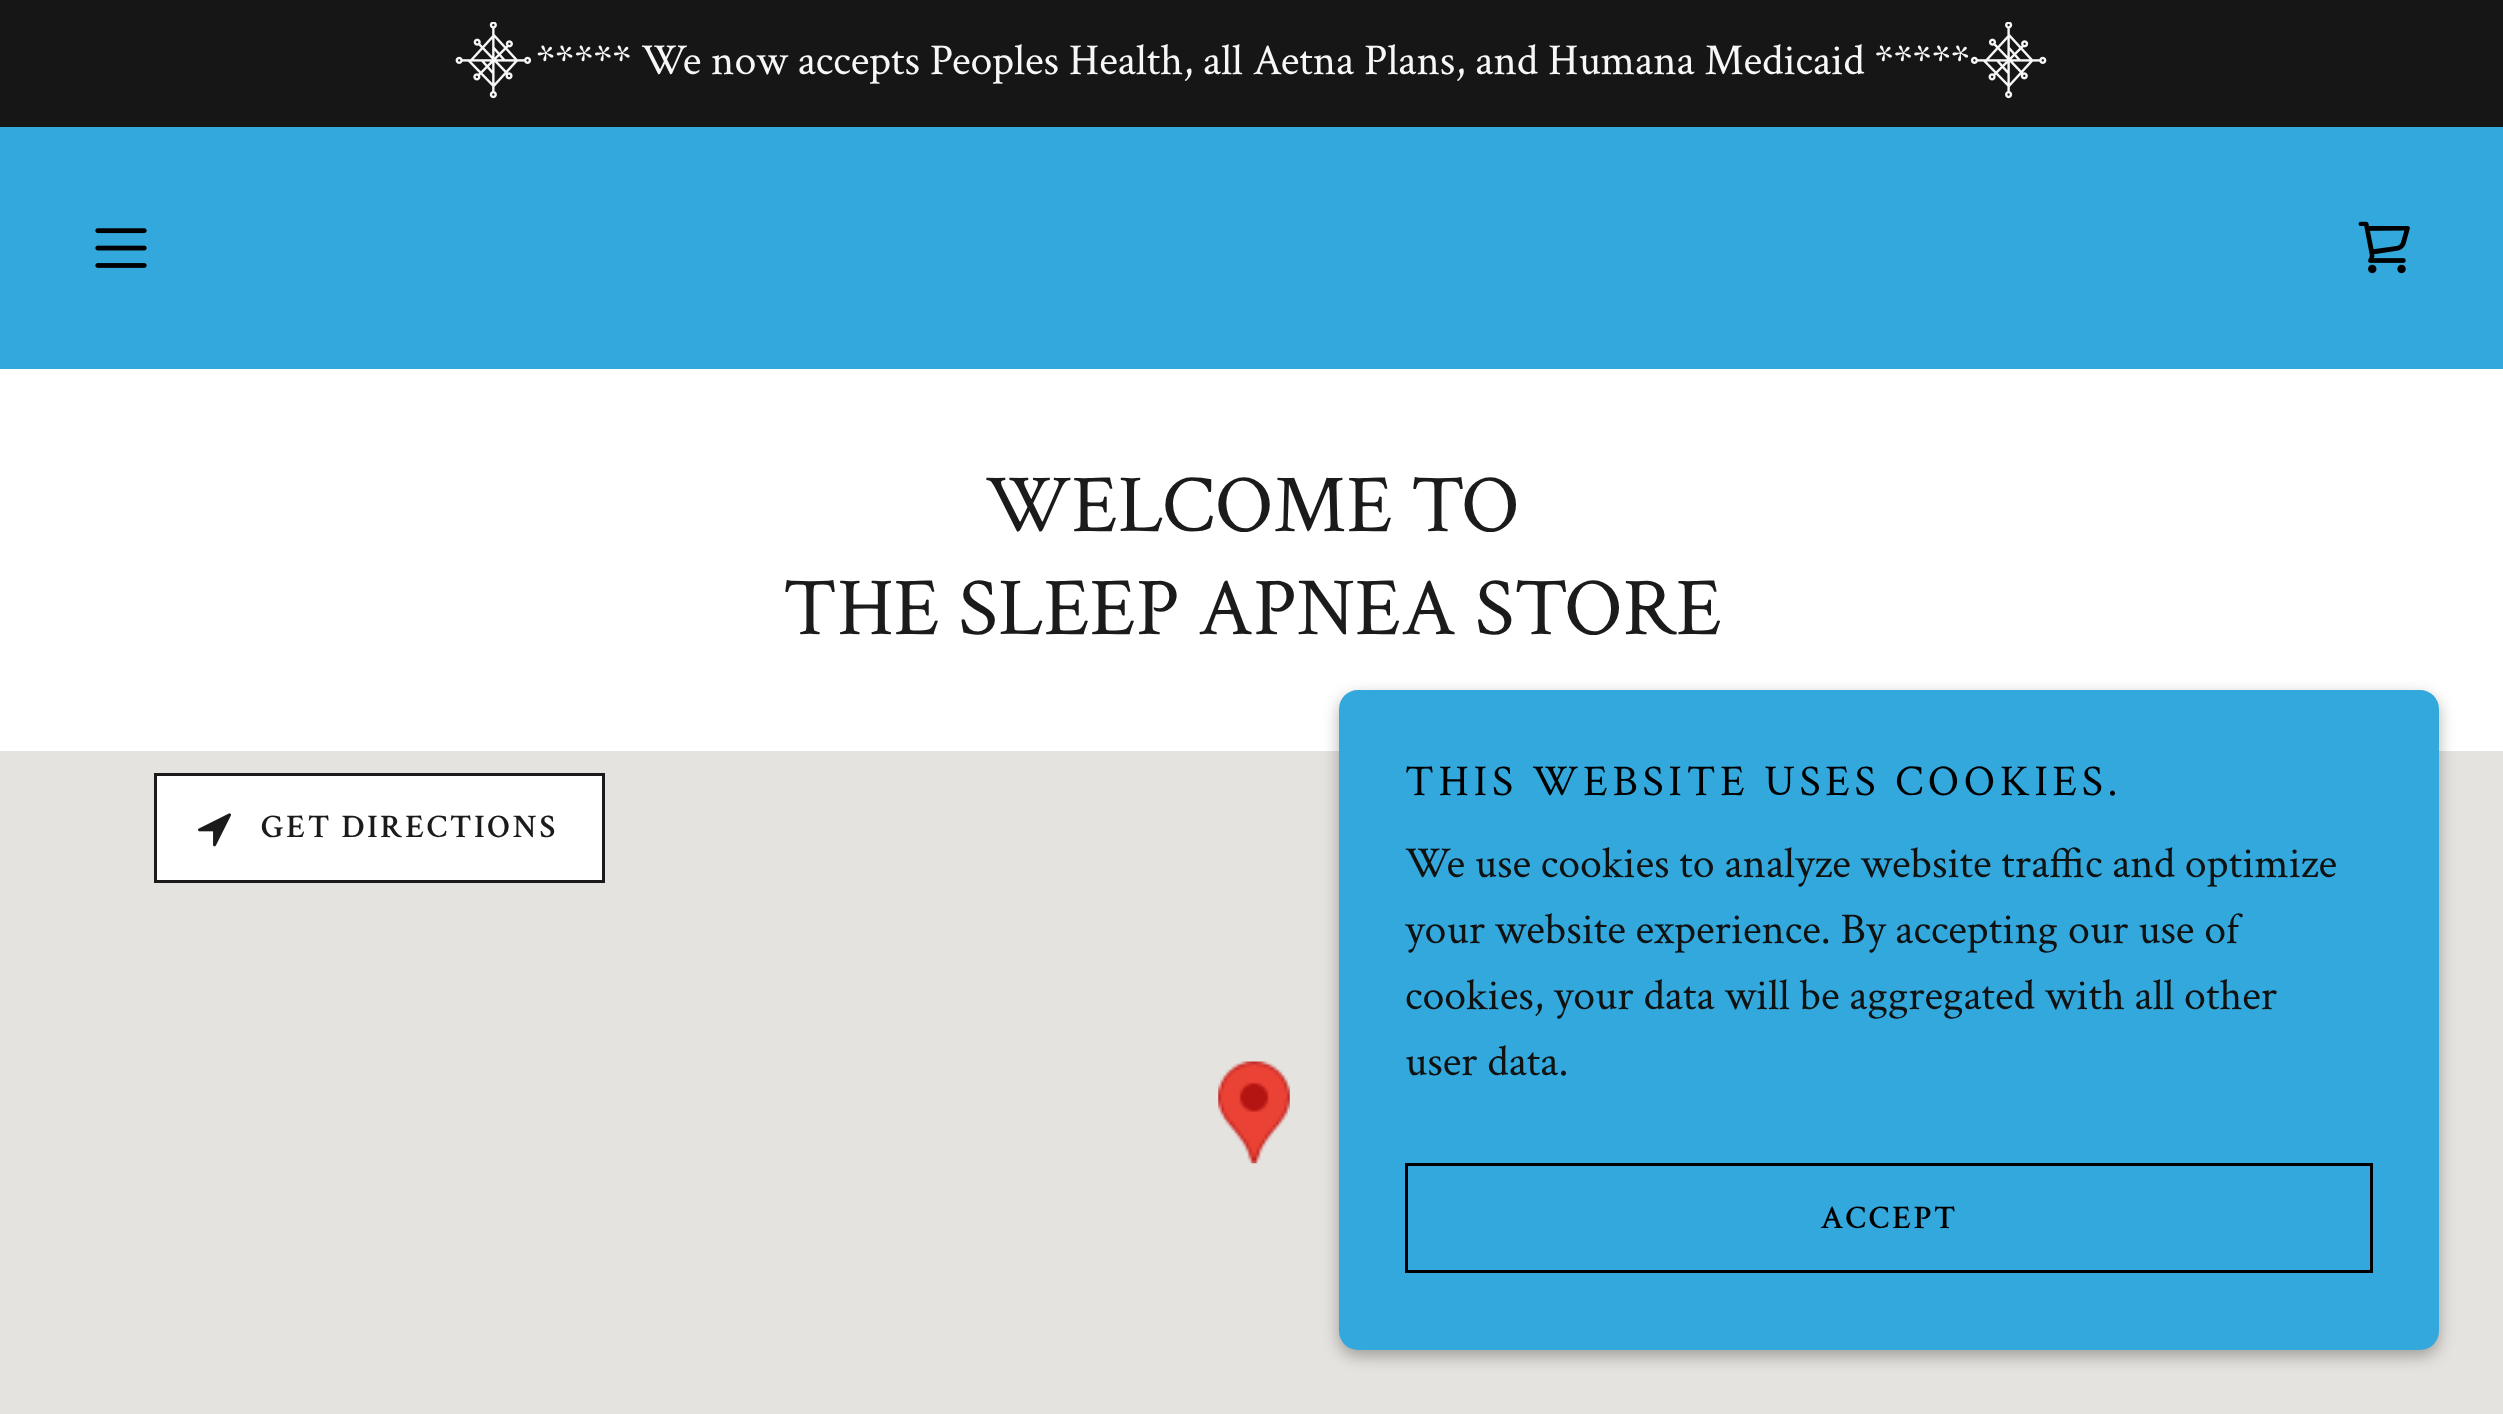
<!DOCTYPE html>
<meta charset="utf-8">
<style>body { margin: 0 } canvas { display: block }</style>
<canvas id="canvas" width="2503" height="1414"></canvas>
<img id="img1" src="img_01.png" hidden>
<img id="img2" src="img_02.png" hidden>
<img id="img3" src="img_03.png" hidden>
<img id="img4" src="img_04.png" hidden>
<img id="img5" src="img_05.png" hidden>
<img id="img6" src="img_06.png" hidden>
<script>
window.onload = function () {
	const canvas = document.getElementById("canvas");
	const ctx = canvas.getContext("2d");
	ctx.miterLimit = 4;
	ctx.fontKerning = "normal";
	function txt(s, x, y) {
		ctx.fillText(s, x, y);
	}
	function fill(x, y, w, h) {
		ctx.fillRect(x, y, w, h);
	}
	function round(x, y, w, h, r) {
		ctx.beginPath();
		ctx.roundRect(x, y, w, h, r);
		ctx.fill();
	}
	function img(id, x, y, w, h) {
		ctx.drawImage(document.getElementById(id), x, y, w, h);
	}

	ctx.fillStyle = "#FFFFFF";
	fill(0, 0, 2503, 1414);
	ctx.fillStyle = "#161616";
	fill(0, 0, 2503, 127);
	img("img1", 455, 22, 77, 77);
	img("img2", 1970, 22, 77, 77);
	ctx.fillStyle = "#33A8DC";
	fill(0, 127, 2503, 242);
	img("img3", 95, 228, 52, 40);
	img("img4", 2358, 221, 52, 53);
	ctx.fillStyle = "#E5E3DF";
	fill(0, 751, 2503, 663);
	img("img5", 1218, 1061, 72, 103);
	ctx.fillStyle = "#FFFFFF";
	ctx.beginPath();
	ctx.rect(155.5, 774.5, 448, 107);
	ctx.fill();
	ctx.strokeStyle = "#1B1B1B";
	ctx.lineWidth = 3;
	ctx.stroke();
	img("img6", 198, 813, 33, 34);
	ctx.fillStyle = "rgba(0, 0, 0, 0.3)";
	ctx.filter = "blur(8px)";
	ctx.beginPath();
	ctx.roundRect(1339, 696, 1100, 660, 19);
	ctx.fill();
	ctx.filter = "none";
	ctx.fillStyle = "#33A8DC";
	round(1339, 690, 1100, 660, 19);
	ctx.strokeStyle = "#000000";
	ctx.strokeRect(1406.5, 1164.5, 965, 107);
	ctx.font = "44px Crimson Text";
	ctx.fillStyle = "#F7F7F7";
	txt("***** We now accepts Peoples Health, all Aetna Plans, and Humana Medicaid *****", 536, 74);
	ctx.font = "82.5px Crimson Text";
	ctx.fillStyle = "#1B1B1B";
	txt("WELCOME TO", 985, 531);
	txt("THE SLEEP APNEA STORE", 783, 634);
	ctx.letterSpacing = "2.75px";
	ctx.font = "600 33px Crimson Text";
	txt("GET DIRECTIONS", 261, 837);
	ctx.letterSpacing = "4.7px";
	ctx.font = "44px Crimson Text";
	ctx.fillStyle = "#000000";
	txt("THIS WEBSITE USES COOKIES.", 1405, 795);
	ctx.letterSpacing = "0px";
	ctx.fillStyle = "#101111";
	txt("We use cookies to analyze website traffic and optimize", 1405, 877);
	txt("your website experience. By accepting our use of", 1405, 943);
	txt("cookies, your data will be aggregated with all other", 1405, 1009);
	txt("user data.", 1405, 1075);
	ctx.letterSpacing = "2.75px";
	ctx.font = "600 33px Crimson Text";
	ctx.fillStyle = "#000000";
	txt("ACCEPT", 1820, 1228);
};
</script>
